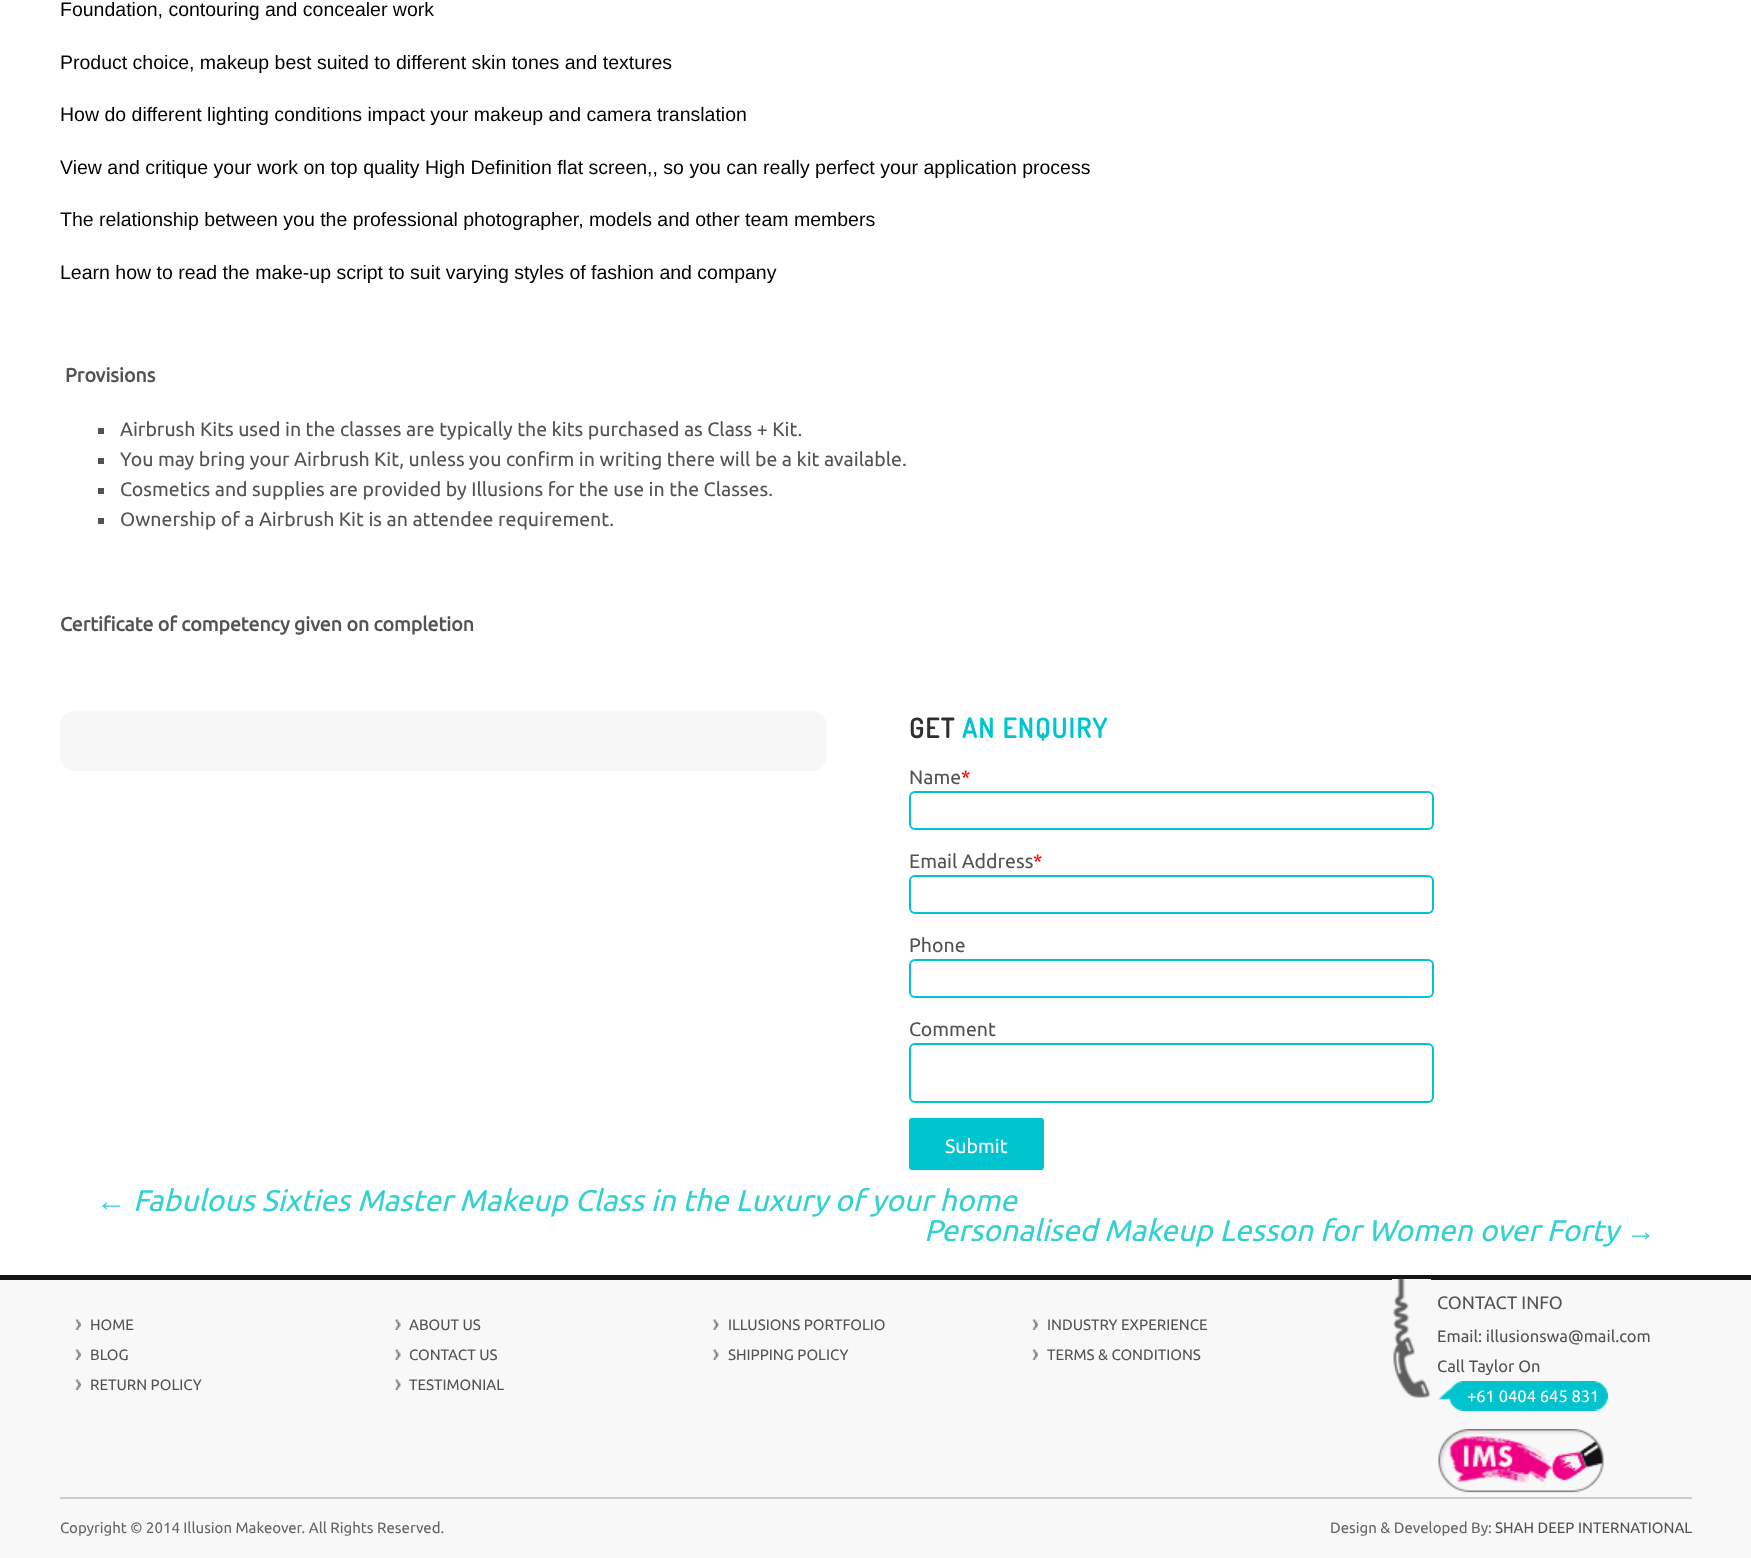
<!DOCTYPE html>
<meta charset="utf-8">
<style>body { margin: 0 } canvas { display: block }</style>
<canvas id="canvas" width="1751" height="1558"></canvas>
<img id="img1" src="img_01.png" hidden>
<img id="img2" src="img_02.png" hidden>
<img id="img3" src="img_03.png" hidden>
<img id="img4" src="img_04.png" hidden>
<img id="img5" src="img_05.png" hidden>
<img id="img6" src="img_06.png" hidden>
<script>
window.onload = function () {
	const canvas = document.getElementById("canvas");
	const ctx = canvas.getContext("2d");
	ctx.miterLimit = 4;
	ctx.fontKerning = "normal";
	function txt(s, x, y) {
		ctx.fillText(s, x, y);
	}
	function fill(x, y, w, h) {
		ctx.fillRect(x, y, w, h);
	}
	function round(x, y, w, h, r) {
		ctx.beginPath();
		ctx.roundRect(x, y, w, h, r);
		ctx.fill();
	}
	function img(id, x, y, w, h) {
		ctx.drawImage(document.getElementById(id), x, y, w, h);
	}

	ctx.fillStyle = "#FFFFFF";
	fill(0, 0, 1751, 1558);
	ctx.fillStyle = "#535353";
	fill(98, 428, 6, 6);
	fill(98, 458, 6, 6);
	fill(98, 488, 6, 6);
	fill(98, 518, 6, 6);
	ctx.fillStyle = "#F7F7F7";
	round(60, 711, 767, 60, 15);
	ctx.beginPath();
	ctx.roundRect(910, 792, 523, 37, 5);
	ctx.strokeStyle = "#00C4D0";
	ctx.lineWidth = 2;
	ctx.stroke();
	ctx.beginPath();
	ctx.roundRect(910, 876, 523, 37, 5);
	ctx.stroke();
	ctx.beginPath();
	ctx.roundRect(910, 960, 523, 37, 5);
	ctx.stroke();
	ctx.beginPath();
	ctx.roundRect(910, 1044, 523, 58, 5);
	ctx.stroke();
	ctx.fillStyle = "#00C4D0";
	round(909, 1118, 135, 52, 3);
	ctx.fillStyle = "#F8F8F8";
	fill(0, 1280, 1751, 278);
	ctx.fillStyle = "#151515";
	fill(0, 1275, 1751, 5);
	img("img1", 75, 1319, 6, 11);
	img("img2", 394, 1319, 7, 11);
	img("img2", 712, 1319, 7, 11);
	img("img3", 1032, 1319, 6, 11);
	img("img1", 75, 1349, 6, 11);
	img("img2", 394, 1349, 7, 11);
	img("img2", 712, 1349, 7, 11);
	img("img3", 1032, 1349, 6, 11);
	img("img1", 75, 1379, 6, 11);
	img("img2", 394, 1379, 7, 11);
	img("img4", 1392, 1279, 39, 119);
	img("img5", 1438, 1381, 170, 30);
	img("img6", 1438, 1429, 166, 64);
	ctx.fillStyle = "#CCCCCC";
	fill(60, 1497, 1632, 2);
	ctx.font = "19.5px Liberation Sans";
	ctx.fillStyle = "#000000";
	txt("Foundation, contouring and concealer work", 60, 16);
	txt("Product choice, makeup best suited to different skin tones and textures", 60, 69);
	txt("How do different lighting conditions impact your makeup and camera translation", 60, 121);
	txt("View and critique your work on top quality High Definition flat screen,, so you can really perfect your application process", 60, 174);
	txt("The relationship between you the professional photographer, models and other team members", 60, 226);
	txt("Learn how to read the make-up script to suit varying styles of fashion and company", 60, 279);
	ctx.font = "bold 19.5px Ubuntu";
	ctx.fillStyle = "#535353";
	txt("Provisions", 65, 382);
	ctx.font = "19.5px Ubuntu";
	txt("Airbrush Kits used in the classes are typically the kits purchased as Class + Kit.", 120, 436);
	txt("You may bring your Airbrush Kit, unless you confirm in writing there will be a kit available.", 120, 466);
	txt("Cosmetics and supplies are provided by Illusions for the use in the Classes.", 120, 496);
	txt("Ownership of a Airbrush Kit is an attendee requirement.", 120, 526);
	ctx.font = "bold 19.5px Ubuntu";
	txt("Certificate of competency given on completion", 60, 631);
	ctx.letterSpacing = "1.5px";
	ctx.font = "bold 27px Dosis";
	ctx.fillStyle = "#303030";
	txt("GET", 909, 738);
	ctx.fillStyle = "#00C4D0";
	txt("AN ENQUIRY", 962, 738);
	ctx.letterSpacing = "0px";
	ctx.font = "19.5px Ubuntu";
	ctx.fillStyle = "#535353";
	txt("Name", 909, 784);
	ctx.fillStyle = "#FF0000";
	txt("*", 961, 784);
	ctx.fillStyle = "#535353";
	txt("Email Address", 909, 868);
	ctx.fillStyle = "#FF0000";
	txt("*", 1033, 868);
	ctx.fillStyle = "#535353";
	txt("Phone", 909, 952);
	txt("Comment", 909, 1036);
	ctx.fillStyle = "#FFFFFF";
	txt("Submit", 945, 1153);
	ctx.font = "italic 30px Liberation Serif";
	ctx.fillStyle = "#33D1D2";
	txt("←", 96, 1211);
	ctx.font = "italic 30px Ubuntu";
	txt("Fabulous Sixties Master Makeup Class in the Luxury of your home", 133, 1211);
	txt("Personalised Makeup Lesson for Women over Forty", 924, 1241);
	ctx.font = "italic 30px Liberation Serif";
	txt("→", 1626, 1241);
	ctx.font = "15px Ubuntu";
	ctx.fillStyle = "#535353";
	txt("HOME", 90, 1330);
	txt("ABOUT US", 409, 1330);
	txt("ILLUSIONS PORTFOLIO", 728, 1330);
	txt("INDUSTRY EXPERIENCE", 1047, 1330);
	txt("BLOG", 90, 1360);
	txt("CONTACT US", 409, 1360);
	txt("SHIPPING POLICY", 728, 1360);
	txt("TERMS & CONDITIONS", 1047, 1360);
	txt("RETURN POLICY", 90, 1390);
	txt("TESTIMONIAL", 409, 1390);
	ctx.font = "18px Ubuntu";
	txt("CONTACT INFO", 1437, 1309);
	ctx.font = "16.5px Ubuntu";
	txt("Email: illusionswa@mail.com", 1437, 1342);
	txt("Call Taylor On", 1437, 1372);
	ctx.fillStyle = "#FFFFFF";
	txt("+61 0404 645 831", 1467, 1402);
	ctx.font = "15px Ubuntu";
	ctx.fillStyle = "#666666";
	txt("Copyright © 2014 Illusion Makeover. All Rights Reserved.", 60, 1533);
	txt("Design & Developed By:", 1330, 1533);
	ctx.fillStyle = "#535353";
	txt("SHAH DEEP INTERNATIONAL", 1495, 1533);
};
</script>
